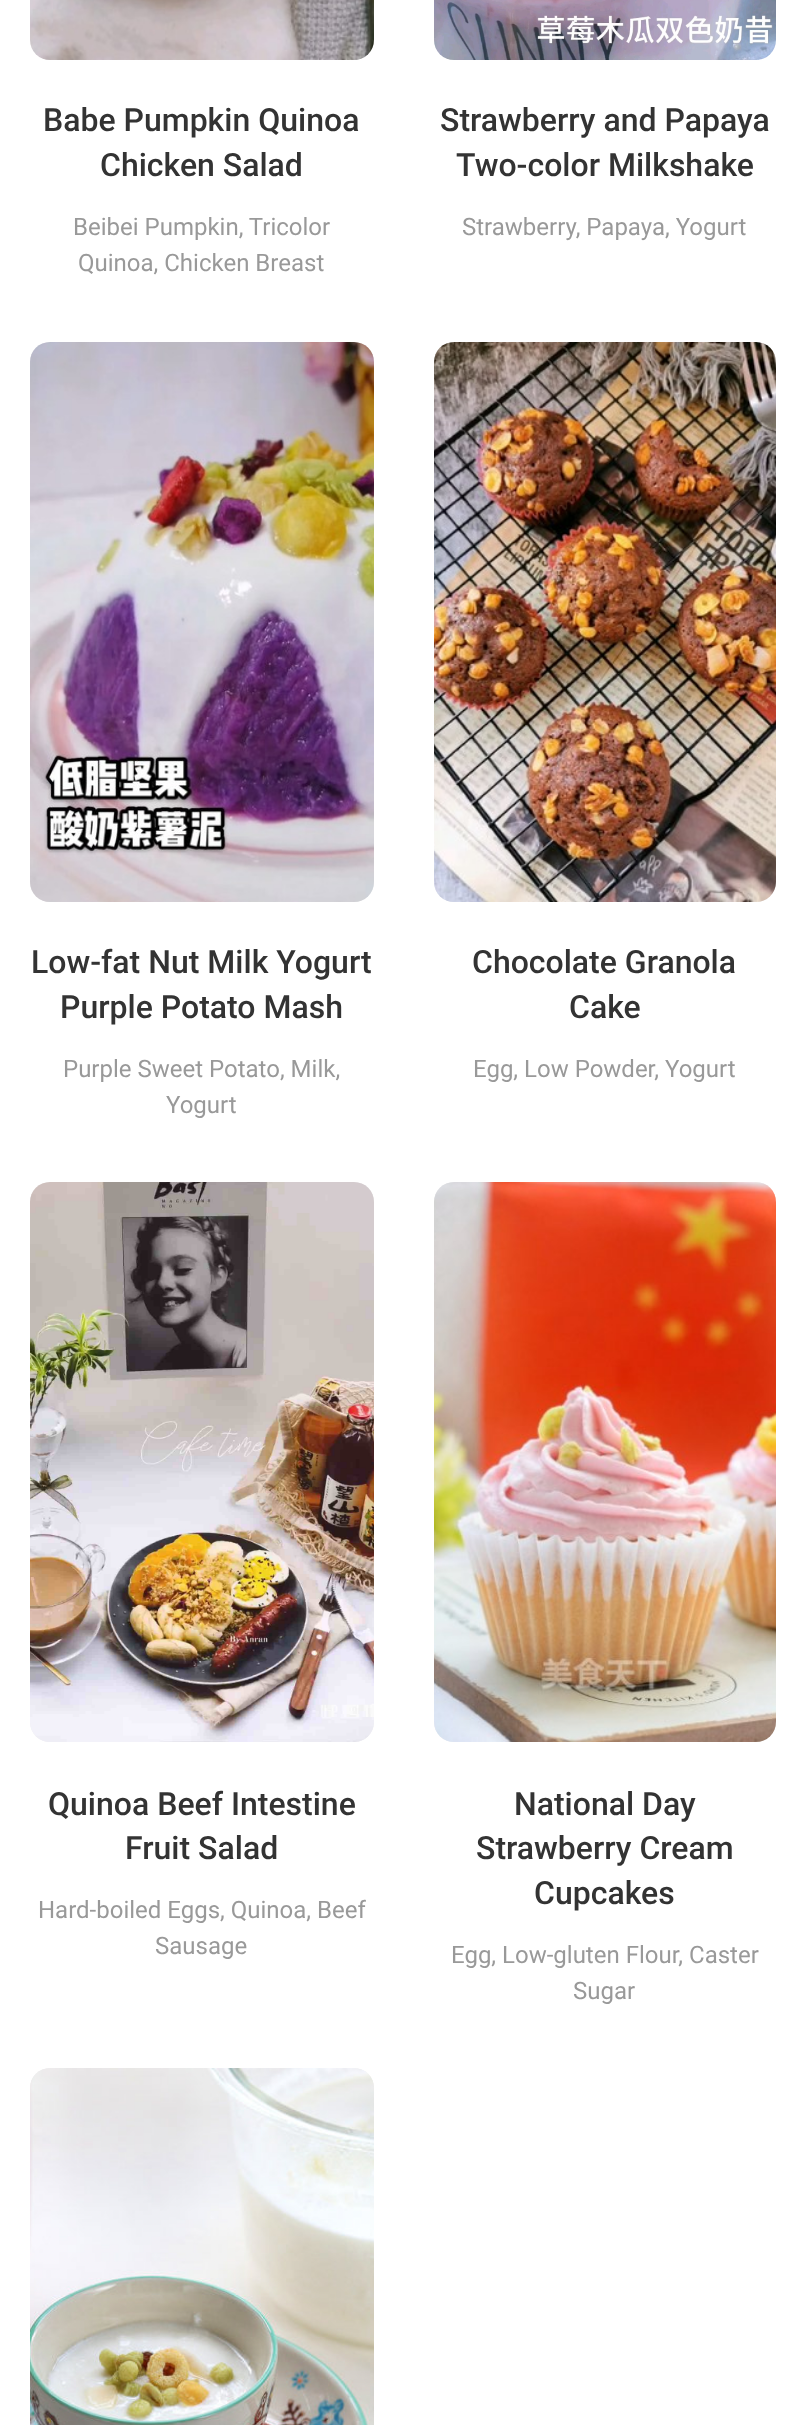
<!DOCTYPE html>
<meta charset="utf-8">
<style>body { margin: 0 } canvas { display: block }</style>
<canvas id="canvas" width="805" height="2425"></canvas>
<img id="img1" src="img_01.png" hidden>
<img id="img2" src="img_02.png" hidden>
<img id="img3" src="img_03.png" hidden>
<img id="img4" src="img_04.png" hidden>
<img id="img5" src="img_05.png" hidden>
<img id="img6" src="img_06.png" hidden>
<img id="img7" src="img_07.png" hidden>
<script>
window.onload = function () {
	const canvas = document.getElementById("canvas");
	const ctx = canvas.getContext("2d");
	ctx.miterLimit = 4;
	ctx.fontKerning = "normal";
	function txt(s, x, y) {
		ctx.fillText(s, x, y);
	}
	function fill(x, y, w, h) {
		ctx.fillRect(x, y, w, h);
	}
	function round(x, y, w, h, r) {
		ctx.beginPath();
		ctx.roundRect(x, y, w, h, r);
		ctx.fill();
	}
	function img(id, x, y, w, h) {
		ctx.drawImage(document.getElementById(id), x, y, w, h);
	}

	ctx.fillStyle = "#FFFFFF";
	fill(0, 0, 805, 2425);
	img("img1", 30, 0, 344, 60);
	img("img2", 434, 0, 342, 60);
	ctx.fillStyle = "#F0F0F0";
	round(30, 342, 344, 560, 20);
	img("img3", 30, 342, 344, 560);
	round(434, 342, 342, 560, 20);
	img("img4", 434, 342, 342, 560);
	round(30, 1182, 344, 560, 20);
	img("img5", 30, 1182, 344, 560);
	round(434, 1182, 342, 560, 20);
	img("img6", 434, 1182, 342, 560);
	round(30, 2068, 344, 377, 20);
	img("img7", 30, 2068, 344, 357);
	ctx.font = "500 32px Roboto";
	ctx.fillStyle = "#333333";
	txt("Babe Pumpkin Quinoa", 43, 131);
	txt("Chicken Salad", 100, 176);
	ctx.font = "24px Roboto";
	ctx.fillStyle = "#999999";
	txt("Beibei Pumpkin, Tricolor", 73, 235);
	txt("Quinoa, Chicken Breast", 78, 271);
	ctx.font = "500 32px Roboto";
	ctx.fillStyle = "#333333";
	txt("Strawberry and Papaya", 440, 131);
	txt("Two-color Milkshake", 456, 176);
	ctx.font = "24px Roboto";
	ctx.fillStyle = "#999999";
	txt("Strawberry, Papaya, Yogurt", 462, 235);
	ctx.font = "500 32px Roboto";
	ctx.fillStyle = "#333333";
	txt("Low-fat Nut Milk Yogurt", 31, 973);
	txt("Purple Potato Mash", 60, 1018);
	ctx.font = "24px Roboto";
	ctx.fillStyle = "#999999";
	txt("Purple Sweet Potato, Milk,", 63, 1077);
	txt("Yogurt", 166, 1113);
	ctx.font = "500 32px Roboto";
	ctx.fillStyle = "#333333";
	txt("Chocolate Granola", 472, 973);
	txt("Cake", 569, 1018);
	ctx.font = "24px Roboto";
	ctx.fillStyle = "#999999";
	txt("Egg, Low Powder, Yogurt", 473, 1077);
	ctx.font = "500 32px Roboto";
	ctx.fillStyle = "#333333";
	txt("Quinoa Beef Intestine", 48, 1815);
	txt("Fruit Salad", 125, 1859);
	ctx.font = "24px Roboto";
	ctx.fillStyle = "#999999";
	txt("Hard-boiled Eggs, Quinoa, Beef", 38, 1918);
	txt("Sausage", 155, 1954);
	ctx.font = "500 32px Roboto";
	ctx.fillStyle = "#333333";
	txt("National Day", 514, 1815);
	txt("Strawberry Cream", 476, 1859);
	txt("Cupcakes", 534, 1904);
	ctx.font = "24px Roboto";
	ctx.fillStyle = "#999999";
	txt("Egg, Low-gluten Flour, Caster", 451, 1963);
	txt("Sugar", 573, 1999);
};
</script>
